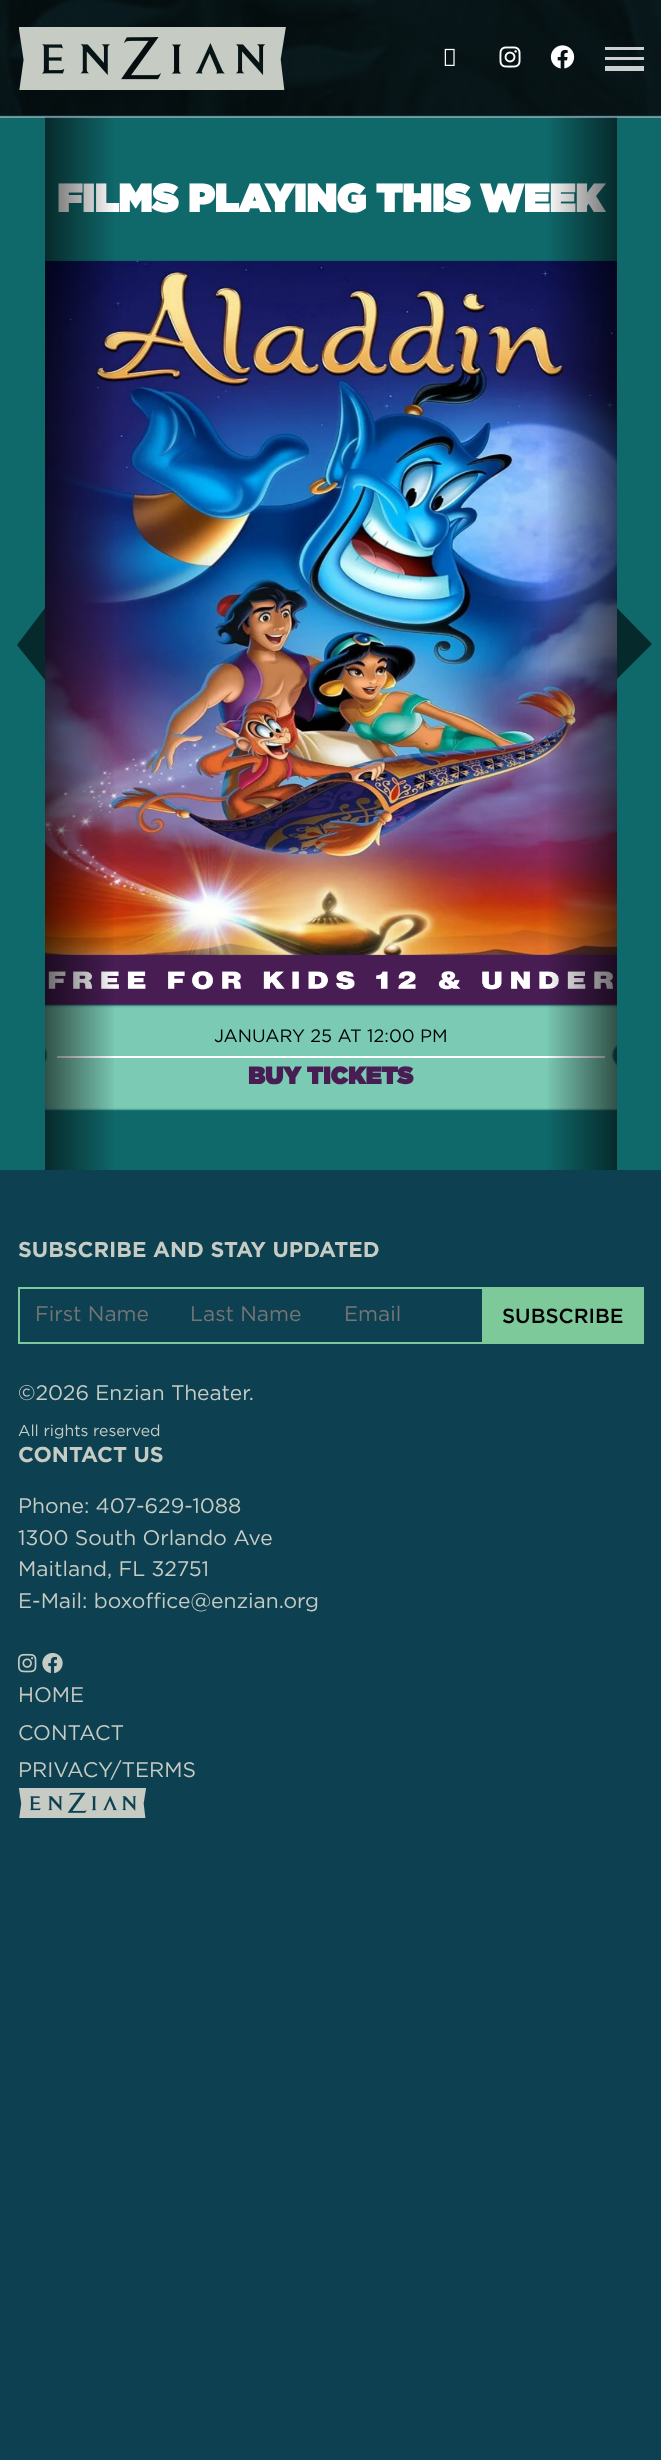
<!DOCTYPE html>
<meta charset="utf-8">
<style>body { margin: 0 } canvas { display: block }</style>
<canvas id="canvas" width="661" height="2460"></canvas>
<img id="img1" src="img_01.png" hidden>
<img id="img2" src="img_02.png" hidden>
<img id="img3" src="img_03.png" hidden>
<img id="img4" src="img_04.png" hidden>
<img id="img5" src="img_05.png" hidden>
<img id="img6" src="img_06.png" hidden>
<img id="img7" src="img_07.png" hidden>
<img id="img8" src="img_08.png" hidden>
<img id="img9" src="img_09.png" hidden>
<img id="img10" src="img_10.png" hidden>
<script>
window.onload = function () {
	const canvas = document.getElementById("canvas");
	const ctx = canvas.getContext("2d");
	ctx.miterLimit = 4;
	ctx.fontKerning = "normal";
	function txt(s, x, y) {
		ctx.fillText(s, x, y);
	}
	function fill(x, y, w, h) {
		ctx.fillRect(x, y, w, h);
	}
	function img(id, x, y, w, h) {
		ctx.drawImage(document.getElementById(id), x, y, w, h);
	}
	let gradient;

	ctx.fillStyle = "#0D4051";
	fill(0, 0, 661, 2460);
	img("img1", 0, 0, 661, 116);
	img("img2", 19, 27, 267, 63);
	img("img3", 444, 48, 11, 18);
	img("img4", 499, 46, 22, 22);
	img("img5", 550, 45, 25, 24);
	ctx.fillStyle = "rgba(255, 255, 255, 0.8)";
	fill(605, 47, 39, 3);
	fill(605, 57, 39, 3);
	fill(605, 66, 39, 5);
	ctx.fillStyle = "#0F696B";
	fill(0, 117, 661, 1053);
	ctx.fillStyle = "#062A2B";
	ctx.beginPath();
	ctx.moveTo(45, 608);
	ctx.lineTo(17, 645);
	ctx.lineTo(45, 680);
	ctx.closePath();
	ctx.fill();
	ctx.beginPath();
	ctx.moveTo(617, 608);
	ctx.lineTo(617, 679);
	ctx.lineTo(652, 644);
	ctx.closePath();
	ctx.fill();
	img("img6", 45, 260, 572, 745);
	img("img7", 45, 1004, 572, 107);
	ctx.fillStyle = "#FFFFFF";
	fill(57, 1056, 548, 2);
	ctx.strokeStyle = "#7DC99A";
	ctx.lineWidth = 2;
	ctx.strokeRect(19, 1288, 624, 55);
	ctx.fillStyle = "#7DC99A";
	fill(482, 1289, 160, 53);
	img("img8", 18, 1653, 19, 20);
	img("img9", 42, 1652, 21, 22);
	img("img10", 19, 1788, 127, 30);
	ctx.font = "bold 39px 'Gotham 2'";
	ctx.fillStyle = "#FFFFFF";
	txt("FILMS PLAYING THIS WEEK", 57, 212);
	gradient = ctx.createLinearGradient(545, 644, 617, 644);
	gradient.addColorStop(0, "rgba(0, 0, 0, 0)");
	gradient.addColorStop(1, "rgba(0, 0, 0, 0.6)");
	ctx.fillStyle = gradient;
	fill(548, 117, 69, 1053);
	gradient = ctx.createLinearGradient(117, 644, 45, 644);
	gradient.addColorStop(0, "rgba(0, 0, 0, 0)");
	gradient.addColorStop(1, "rgba(0, 0, 0, 0.6)");
	ctx.fillStyle = gradient;
	fill(45, 117, 69, 1053);
	ctx.fillStyle = "rgba(221, 221, 221, 0.48)";
	fill(0, 116, 661, 2);
	ctx.font = "18px Gotham";
	ctx.fillStyle = "#000000";
	txt("JANUARY 25 AT 12:00 PM", 214, 1042);
	ctx.font = "bold 24px 'Gotham 2'";
	ctx.fillStyle = "#481D54";
	txt("BUY TICKETS", 248, 1084);
	ctx.font = "bold 21.6px Gotham";
	ctx.fillStyle = "#C6CBC3";
	txt("SUBSCRIBE AND STAY UPDATED", 18, 1257);
	ctx.font = "21px Gotham";
	ctx.fillStyle = "#757575";
	txt("First Name", 35, 1321);
	txt("Last Name", 190, 1321);
	txt("Email", 344, 1321);
	ctx.font = "500 20.5px Gotham";
	ctx.fillStyle = "#000000";
	txt("SUBSCRIBE", 502, 1323);
	ctx.font = "21px Gotham";
	ctx.fillStyle = "#C6CBC3";
	txt("©2026 Enzian Theater.", 18, 1400);
	ctx.font = "15.75px Gotham";
	txt("All rights reserved", 18, 1436);
	ctx.font = "bold 21.6px Gotham";
	txt("CONTACT US", 18, 1462);
	ctx.font = "21px Gotham";
	txt("Phone: 407-629-1088", 18, 1513);
	txt("1300 South Orlando Ave", 18, 1545);
	txt("Maitland, FL 32751", 18, 1576);
	txt("E-Mail: boxoffice@enzian.org", 18, 1608);
	txt("HOME", 18, 1702);
	txt("CONTACT", 18, 1740);
	txt("PRIVACY/TERMS", 18, 1777);
};
</script>
